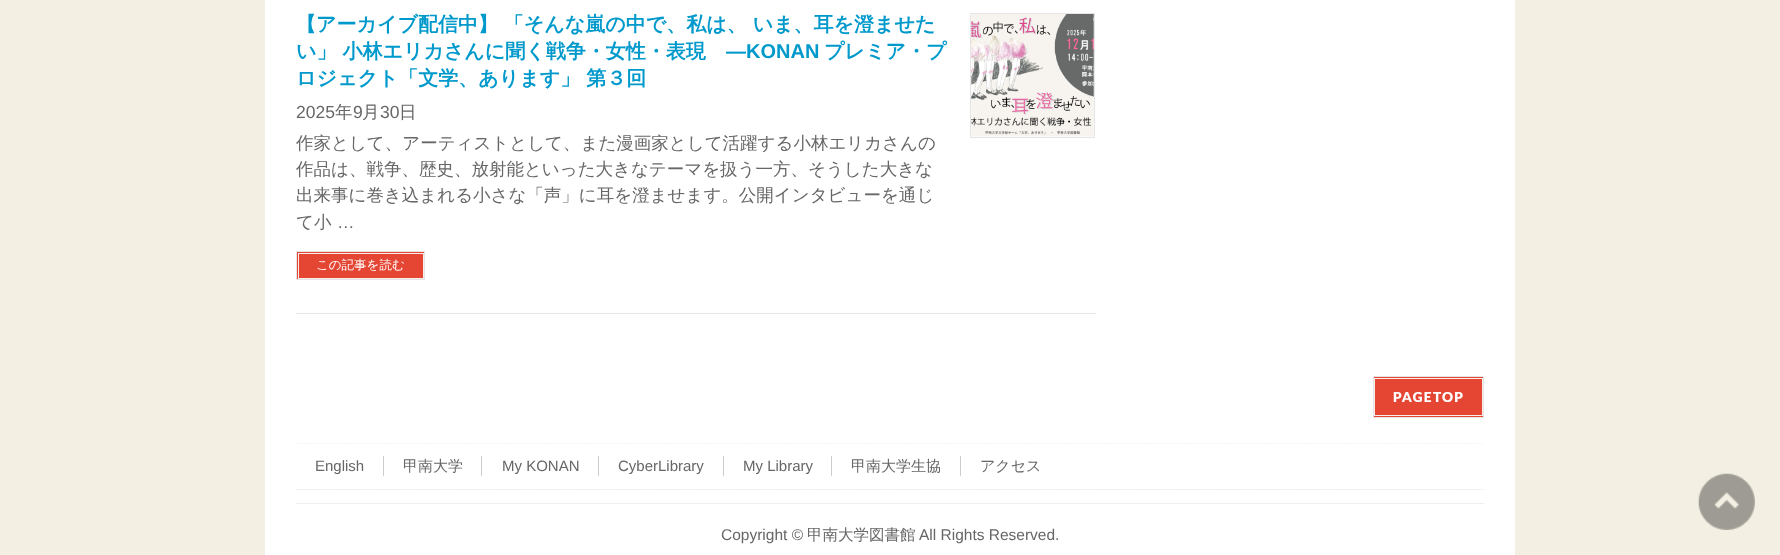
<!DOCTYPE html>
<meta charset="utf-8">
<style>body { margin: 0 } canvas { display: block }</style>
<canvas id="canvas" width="1780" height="555"></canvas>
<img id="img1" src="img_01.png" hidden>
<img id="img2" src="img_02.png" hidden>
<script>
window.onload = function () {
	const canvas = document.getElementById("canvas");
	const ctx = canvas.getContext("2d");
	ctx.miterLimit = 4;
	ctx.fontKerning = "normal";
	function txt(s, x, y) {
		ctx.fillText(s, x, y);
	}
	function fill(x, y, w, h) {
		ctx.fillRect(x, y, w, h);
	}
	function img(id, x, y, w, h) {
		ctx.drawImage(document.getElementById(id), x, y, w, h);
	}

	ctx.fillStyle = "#F3EFE3";
	fill(0, 0, 1780, 555);
	ctx.fillStyle = "#FFFFFF";
	fill(265, 0, 1250, 443);
	ctx.fillStyle = "#E5E5E5";
	fill(296, 313, 800, 1);
	ctx.fillStyle = "#E54634";
	fill(297, 252, 127, 27);
	ctx.strokeStyle = "#FCEDEB";
	ctx.strokeRect(298.5, 253.5, 125, 25);
	ctx.strokeStyle = "#E5E5E5";
	ctx.strokeRect(296.5, 251.5, 128, 28);
	ctx.strokeRect(970.5, 13.5, 124, 124);
	img("img1", 971, 14, 123, 123);
	fill(1374, 377, 109, 40);
	ctx.strokeStyle = "#FCEDEB";
	ctx.strokeRect(1374.5, 378.5, 108, 37);
	ctx.strokeStyle = "#E5E5E5";
	ctx.strokeRect(1373.5, 376.5, 110, 41);
	ctx.fillStyle = "#FFFFFF";
	fill(265, 443, 1250, 112);
	ctx.save();
	ctx.beginPath();
	ctx.rect(0, 443, 1780, 60);
	ctx.clip();
	ctx.beginPath();
	ctx.moveTo(296, 443);
	ctx.lineTo(1484, 443);
	ctx.lineWidth = 1.2;
	ctx.setLineDash([1.25, 1.25]);
	ctx.stroke();
	ctx.restore();
	ctx.beginPath();
	ctx.moveTo(296, 489.5);
	ctx.lineTo(1484, 489.5);
	ctx.lineWidth = 1.2;
	ctx.setLineDash([1.25, 1.25]);
	ctx.stroke();
	ctx.fillStyle = "#CCCCCC";
	fill(383, 456, 1, 20);
	fill(481, 456, 1, 20);
	fill(598, 456, 1, 20);
	fill(723, 456, 1, 20);
	fill(831, 456, 1, 20);
	fill(960, 456, 1, 20);
	ctx.fillStyle = "#EFEFEF";
	fill(296, 503, 1188, 1);
	img("img2", 1698, 473, 57, 57);
	ctx.font = "bold 20px WenQuanYi Zen Hei";
	ctx.fillStyle = "#0099CC";
	txt("【アーカイブ配信中】 「そんな嵐の中で、私は、 いま、耳を澄ませた", 296, 31);
	txt("い」 小林エリカさんに聞く戦争・女性・表現", 296, 58);
	ctx.font = "bold 20px Liberation Sans";
	txt("―KONAN", 726, 58);
	ctx.font = "bold 20px WenQuanYi Zen Hei";
	txt("プレミア・プ", 824, 58);
	txt("ロジェクト「文学、あります」 第３回", 296, 85);
	ctx.font = "17.5px Liberation Sans";
	ctx.fillStyle = "#666666";
	txt("2025", 296, 118);
	ctx.font = "500 17.5px WenQuanYi Zen Hei";
	txt("年", 335, 118);
	ctx.font = "17.5px Liberation Sans";
	txt("9", 353, 118);
	ctx.font = "500 17.5px WenQuanYi Zen Hei";
	txt("月", 362, 118);
	ctx.font = "17.5px Liberation Sans";
	txt("30", 380, 118);
	ctx.font = "500 17.5px WenQuanYi Zen Hei";
	txt("日", 399, 118);
	txt("作家として、アーティストとして、また漫画家として活躍する小林エリカさんの", 296, 149);
	txt("作品は、戦争、歴史、放射能といった大きなテーマを扱う一方、そうした大きな", 296, 175);
	txt("出来事に巻き込まれる小さな「声」に耳を澄ませます。公開インタビューを通じ", 296, 201);
	txt("て小", 296, 228);
	ctx.font = "17.5px Liberation Sans";
	txt("…", 337, 228);
	ctx.font = "500 12.5px WenQuanYi Zen Hei";
	ctx.fillStyle = "#FFFFFF";
	txt("この記事を読む", 316, 269);
	ctx.letterSpacing = "1.25px";
	ctx.font = "900 13.75px Lato";
	txt("PAGETOP", 1393, 402);
	ctx.letterSpacing = "0px";
	ctx.font = "15px Liberation Sans";
	ctx.fillStyle = "#666666";
	txt("English", 315, 471);
	ctx.font = "500 15px WenQuanYi Zen Hei";
	txt("甲南大学", 403, 471);
	ctx.font = "15px Liberation Sans";
	txt("My KONAN", 502, 471);
	txt("CyberLibrary", 618, 471);
	txt("My Library", 743, 471);
	ctx.font = "500 15px WenQuanYi Zen Hei";
	txt("甲南大学生協", 851, 471);
	txt("アクセス", 980, 471);
	ctx.font = "15.5px Liberation Sans";
	txt("Copyright ©", 721, 540);
	ctx.font = "500 15.5px WenQuanYi Zen Hei";
	txt("甲南大学図書館", 807, 540);
	ctx.font = "15.5px Liberation Sans";
	txt("All Rights Reserved.", 919, 540);
};
</script>
